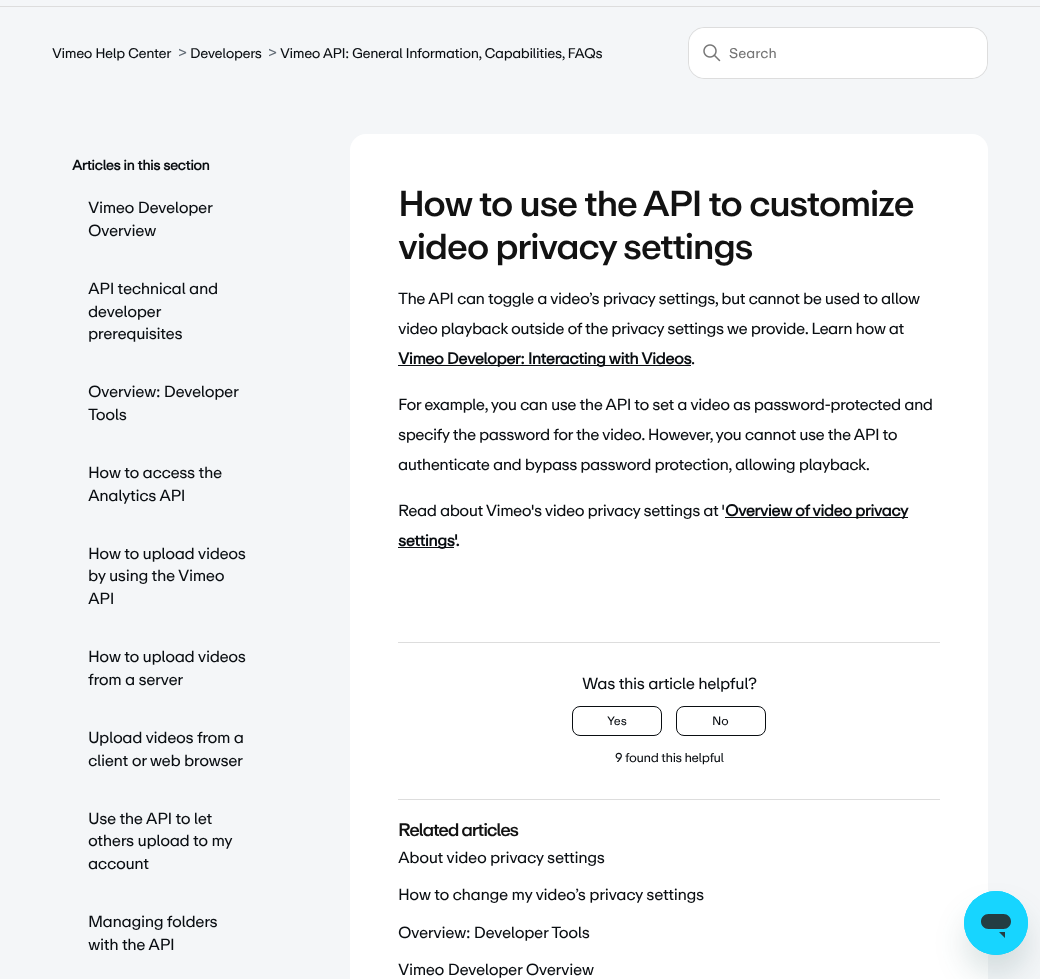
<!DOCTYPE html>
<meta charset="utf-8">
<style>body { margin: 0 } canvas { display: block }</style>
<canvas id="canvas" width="1040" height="979"></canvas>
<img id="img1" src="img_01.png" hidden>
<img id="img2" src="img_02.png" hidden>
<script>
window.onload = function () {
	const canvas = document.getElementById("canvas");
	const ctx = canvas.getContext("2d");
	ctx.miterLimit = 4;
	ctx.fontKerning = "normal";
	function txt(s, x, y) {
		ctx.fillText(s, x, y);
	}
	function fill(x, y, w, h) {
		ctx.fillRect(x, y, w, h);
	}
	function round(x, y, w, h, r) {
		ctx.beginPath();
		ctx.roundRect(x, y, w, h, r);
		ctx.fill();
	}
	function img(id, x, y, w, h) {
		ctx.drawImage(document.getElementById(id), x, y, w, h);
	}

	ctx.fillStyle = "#F4F6F8";
	fill(0, 0, 1040, 979);
	ctx.fillStyle = "#DDDDDD";
	fill(0, 6, 1040, 1);
	ctx.beginPath();
	ctx.roundRect(688.5, 27.5, 299, 51, 15.5);
	ctx.strokeStyle = "#DDDDDD";
	ctx.stroke();
	ctx.fillStyle = "#FFFFFF";
	round(689, 28, 298, 50, 16);
	img("img1", 703, 44, 18, 18);
	round(350, 134, 638, 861, 16);
	ctx.fillStyle = "#0A0E12";
	fill(398, 365, 293, 1);
	fill(725, 517, 183, 1);
	fill(398, 547, 56, 1);
	ctx.fillStyle = "#DDDDDD";
	fill(398, 642, 542, 1);
	ctx.beginPath();
	ctx.roundRect(572.5, 706.5, 89, 29, 7.5);
	ctx.strokeStyle = "#0A0E12";
	ctx.stroke();
	ctx.beginPath();
	ctx.roundRect(676.5, 706.5, 89, 29, 7.5);
	ctx.stroke();
	fill(398, 799, 542, 1);
	ctx.fillStyle = "rgba(23, 73, 77, 0.15)";
	ctx.filter = "blur(15px)";
	ctx.beginPath();
	ctx.roundRect(964, 911, 64, 64, 32);
	ctx.fill();
	ctx.filter = "none";
	img("img2", 964, 891, 64, 64);
	ctx.letterSpacing = "-0.4px";
	ctx.font = "14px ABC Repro";
	ctx.fillStyle = "#0A0E12";
	txt("Vimeo Help Center", 52, 58);
	ctx.fillStyle = "#626C76";
	txt(">", 178, 56);
	ctx.fillStyle = "#0A0E12";
	txt("Developers", 190, 58);
	ctx.fillStyle = "#626C76";
	txt(">", 268, 56);
	ctx.fillStyle = "#0A0E12";
	txt("Vimeo API: General Information, Capabilities, FAQs", 280, 58);
	ctx.letterSpacing = "0px";
	ctx.fillStyle = "#757575";
	txt("Search", 729, 58);
	ctx.letterSpacing = "-0.4px";
	ctx.font = "bold 14px ABC Repro";
	ctx.fillStyle = "#0A0E12";
	txt("Articles in this section", 72, 170);
	ctx.font = "16px ABC Repro";
	txt("Vimeo Developer", 88, 213);
	txt("Overview", 88, 236);
	txt("API technical and", 88, 294);
	txt("developer", 88, 317);
	txt("prerequisites", 88, 339);
	txt("Overview: Developer", 88, 397);
	txt("Tools", 88, 420);
	txt("How to access the", 88, 478);
	txt("Analytics API", 88, 501);
	txt("How to upload videos", 88, 559);
	txt("by using the Vimeo", 88, 581);
	txt("API", 88, 604);
	txt("How to upload videos", 88, 662);
	txt("from a server", 88, 685);
	txt("Upload videos from a", 88, 743);
	txt("client or web browser", 88, 766);
	txt("Use the API to let", 88, 824);
	txt("others upload to my", 88, 846);
	txt("account", 88, 869);
	txt("Managing folders", 88, 927);
	txt("with the API", 88, 950);
	ctx.letterSpacing = "-1.45px";
	ctx.font = "500 36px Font";
	ctx.fillStyle = "#121212";
	txt("How to use the API to customize", 398, 216);
	txt("video privacy settings", 398, 259);
	ctx.letterSpacing = "-0.55px";
	ctx.font = "16px ABC Repro";
	ctx.fillStyle = "#0A0E12";
	txt("The API can toggle a video’s privacy settings, but cannot be used to allow", 398, 304);
	txt("video playback outside of the privacy settings we provide. Learn how at", 398, 334);
	ctx.font = "bold 16px ABC Repro";
	txt("Vimeo Developer: Interacting with Videos", 398, 364);
	ctx.font = "16px ABC Repro";
	txt(".", 691, 364);
	txt("For example, you can use the API to set a video as password-protected and", 398, 410);
	txt("specify the password for the video. However, you cannot use the API to", 398, 440);
	txt("authenticate and bypass password protection, allowing playback.", 398, 470);
	txt("Read about Vimeo's video privacy settings at '", 398, 516);
	ctx.font = "bold 16px ABC Repro";
	txt("Overview of video privacy", 725, 516);
	txt("settings'.", 398, 546);
	ctx.letterSpacing = "-0.4px";
	ctx.font = "16px ABC Repro";
	txt("Was this article helpful?", 582, 689);
	ctx.letterSpacing = "0px";
	ctx.font = "12px ABC Repro";
	txt("Yes", 607, 725);
	txt("No", 712, 725);
	ctx.letterSpacing = "-0.4px";
	ctx.font = "12.75px ABC Repro";
	txt("9 found this helpful", 615, 762);
	ctx.letterSpacing = "-1.25px";
	ctx.font = "500 18px Font";
	ctx.fillStyle = "#121212";
	txt("Related articles", 398, 836);
	ctx.letterSpacing = "-0.4px";
	ctx.font = "16px ABC Repro";
	ctx.fillStyle = "#0A0E12";
	txt("About video privacy settings", 398, 863);
	txt("How to change my video’s privacy settings", 398, 900);
	txt("Overview: Developer Tools", 398, 938);
	txt("Vimeo Developer Overview", 398, 975);
};
</script>
